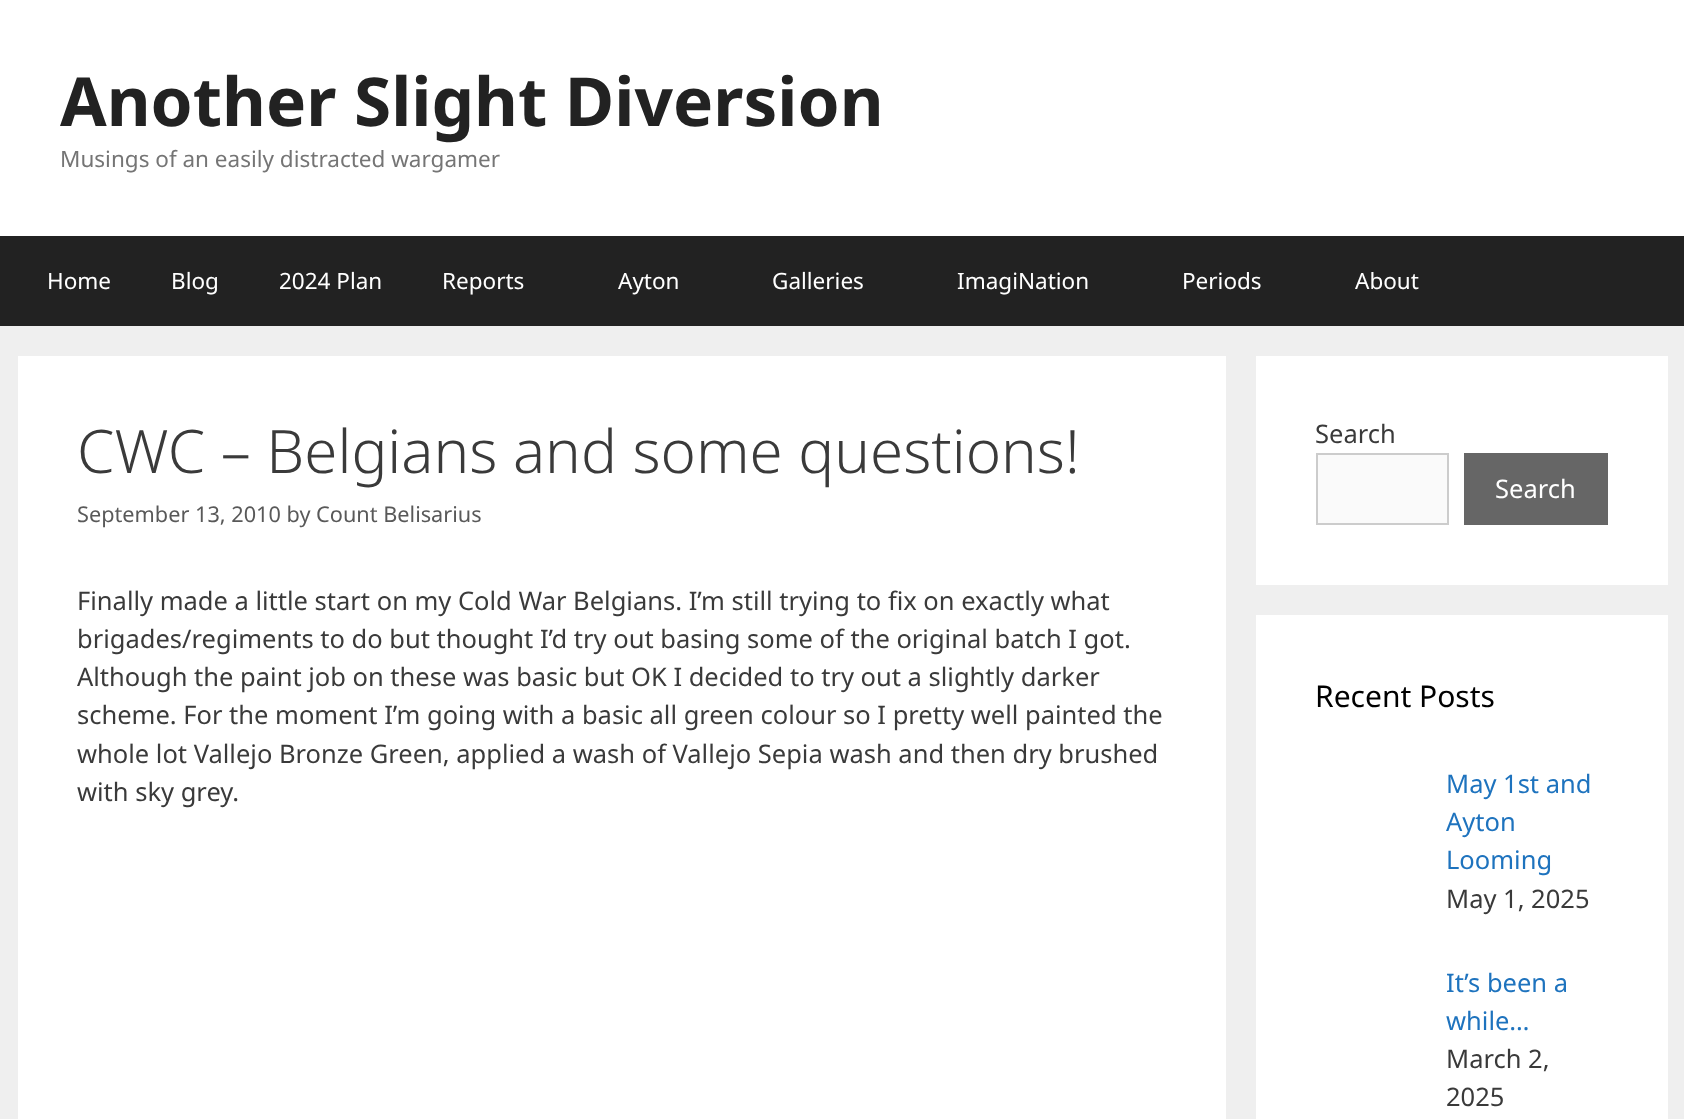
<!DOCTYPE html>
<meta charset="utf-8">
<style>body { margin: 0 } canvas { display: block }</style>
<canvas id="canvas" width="1684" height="1119"></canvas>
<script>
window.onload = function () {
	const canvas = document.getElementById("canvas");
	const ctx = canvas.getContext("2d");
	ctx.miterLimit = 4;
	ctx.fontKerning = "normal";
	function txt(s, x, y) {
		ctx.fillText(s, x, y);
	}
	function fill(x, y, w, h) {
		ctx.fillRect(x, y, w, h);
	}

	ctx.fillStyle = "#EFEFEF";
	fill(0, 0, 1684, 1119);
	ctx.fillStyle = "#FFFFFF";
	fill(0, 0, 1684, 236);
	ctx.fillStyle = "#222222";
	fill(0, 236, 1684, 90);
	ctx.fillStyle = "#FFFFFF";
	fill(18, 356, 1208, 763);
	fill(1256, 356, 412, 229);
	ctx.fillStyle = "#FAFAFA";
	ctx.beginPath();
	ctx.rect(1317, 454, 131, 70);
	ctx.fill();
	ctx.strokeStyle = "#CCCCCC";
	ctx.lineWidth = 2;
	ctx.stroke();
	ctx.fillStyle = "#666666";
	fill(1464, 453, 144, 72);
	ctx.fillStyle = "#FFFFFF";
	fill(1256, 615, 412, 504);
	ctx.font = "bold 67.5px Noto Sans";
	ctx.fillStyle = "#222222";
	txt("Another Slight Diversion", 60, 126);
	ctx.font = "22.5px Noto Sans";
	ctx.fillStyle = "#757575";
	txt("Musings of an easily distracted wargamer", 60, 167);
	ctx.fillStyle = "#FFFFFF";
	txt("Home", 47, 289);
	txt("Blog", 171, 289);
	txt("2024 Plan", 279, 289);
	txt("Reports", 442, 289);
	txt("Ayton", 618, 289);
	txt("Galleries", 772, 289);
	txt("ImagiNation", 957, 289);
	txt("Periods", 1182, 289);
	txt("About", 1355, 289);
	ctx.font = "300 60px Noto Sans";
	ctx.fillStyle = "#3A3A3A";
	txt("CWC – Belgians and some questions!", 77, 473);
	ctx.font = "21.7px Noto Sans";
	ctx.fillStyle = "#595959";
	txt("September 13, 2010 by Count Belisarius", 77, 522);
	ctx.font = "25.5px Noto Sans";
	ctx.fillStyle = "#3A3A3A";
	txt("Finally made a little start on my Cold War Belgians. I’m still trying to fix on exactly what", 77, 610);
	txt("brigades/regiments to do but thought I’d try out basing some of the original batch I got.", 77, 648);
	txt("Although the paint job on these was basic but OK I decided to try out a slightly darker", 77, 686);
	txt("scheme. For the moment I’m going with a basic all green colour so I pretty well painted the", 77, 724);
	txt("whole lot Vallejo Bronze Green, applied a wash of Vallejo Sepia wash and then dry brushed", 77, 763);
	txt("with sky grey.", 77, 801);
	txt("Search", 1315, 443);
	ctx.fillStyle = "#FFFFFF";
	txt("Search", 1495, 498);
	ctx.font = "30px Noto Sans";
	ctx.fillStyle = "#000000";
	txt("Recent Posts", 1315, 707);
	ctx.font = "25.5px Noto Sans";
	ctx.fillStyle = "#1E73BE";
	txt("May 1st and", 1446, 793);
	txt("Ayton", 1446, 831);
	txt("Looming", 1446, 869);
	ctx.fillStyle = "#3A3A3A";
	txt("May 1, 2025", 1446, 908);
	ctx.fillStyle = "#1E73BE";
	txt("It’s been a", 1446, 992);
	txt("while…", 1446, 1030);
	ctx.fillStyle = "#3A3A3A";
	txt("March 2,", 1446, 1068);
	txt("2025", 1446, 1106);
};
</script>
